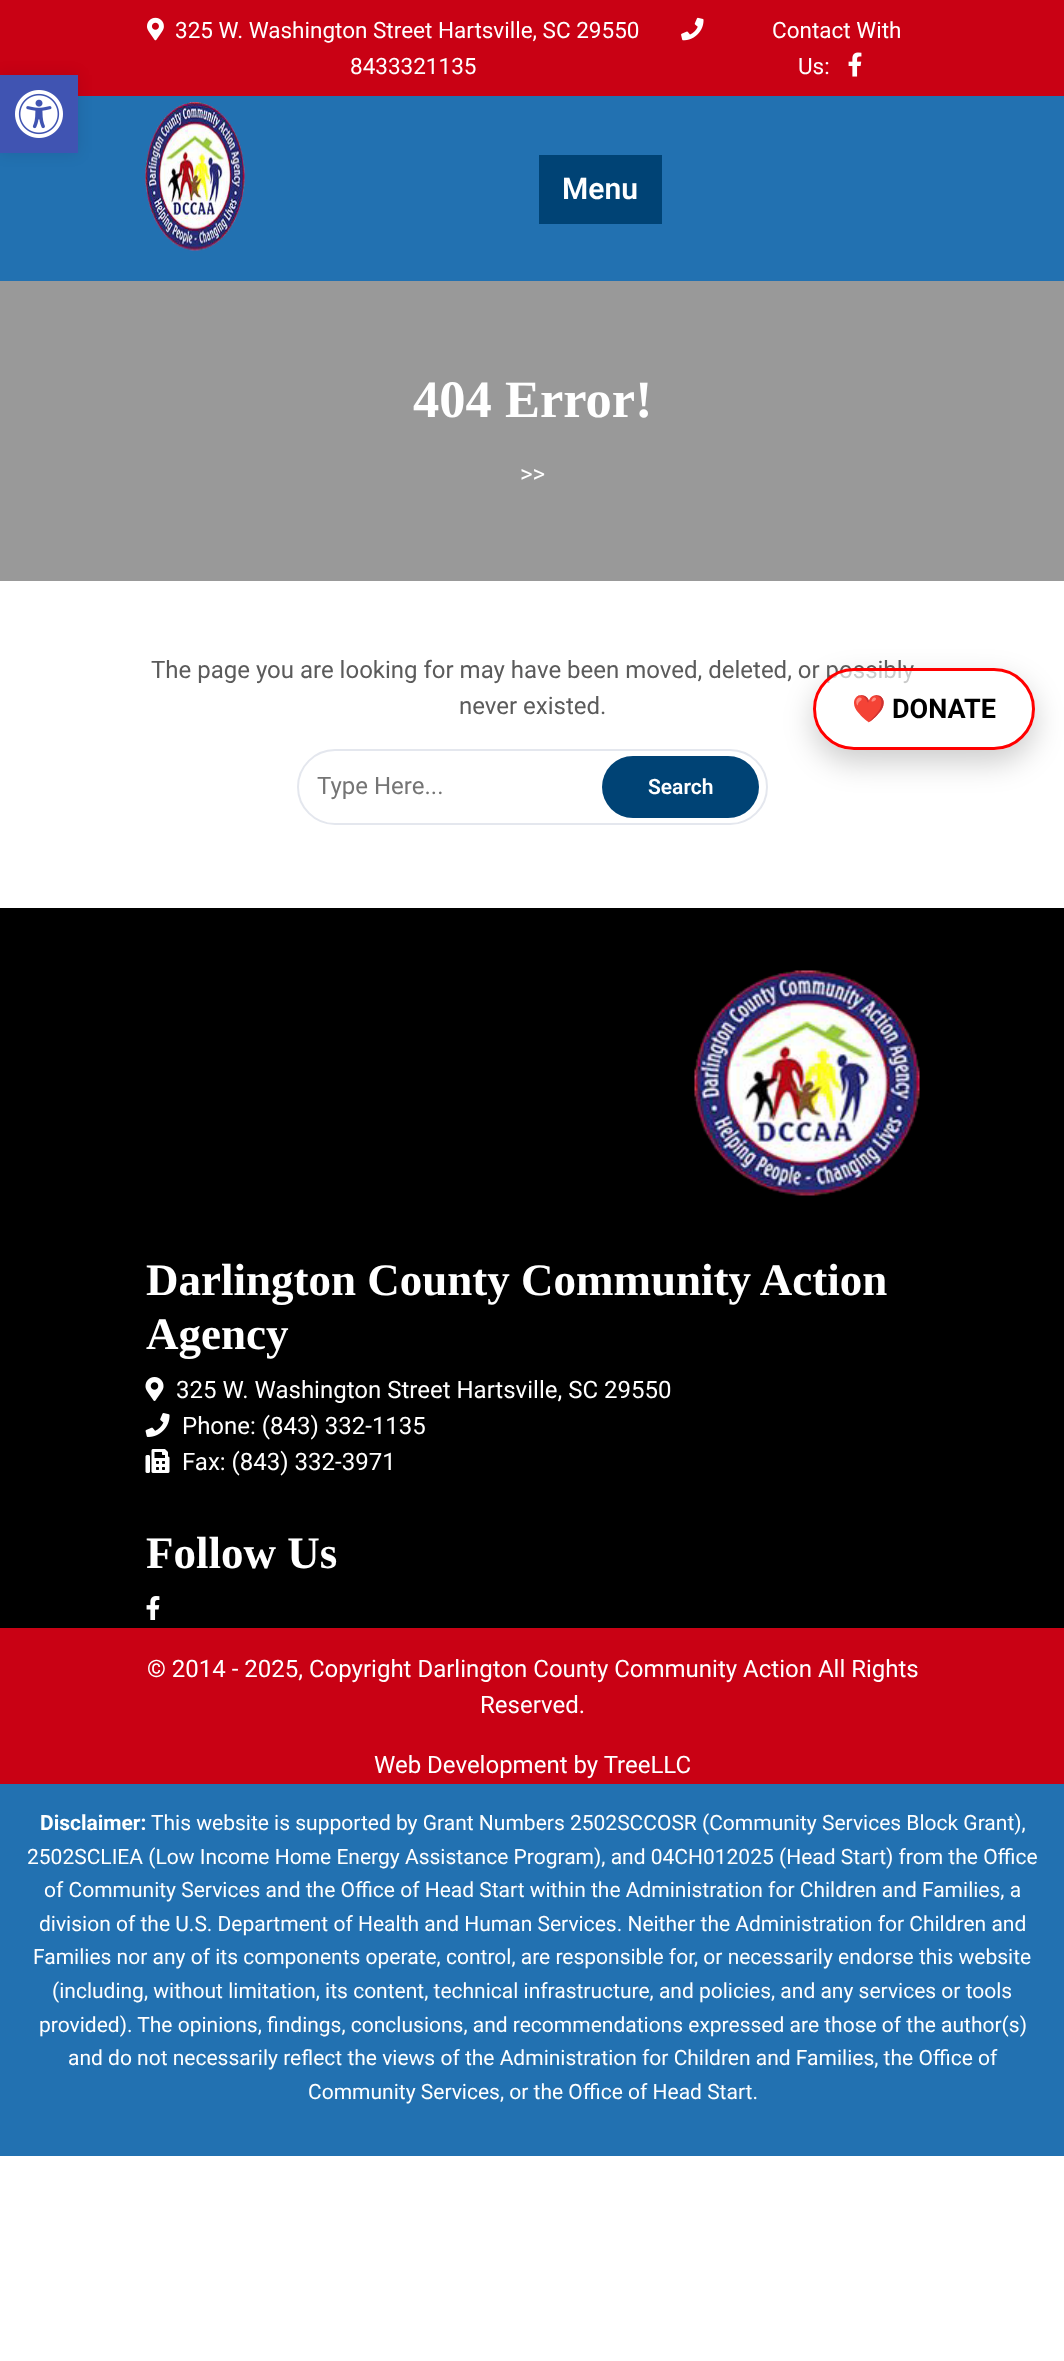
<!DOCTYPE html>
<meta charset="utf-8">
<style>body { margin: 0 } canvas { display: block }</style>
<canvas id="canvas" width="1064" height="2361"></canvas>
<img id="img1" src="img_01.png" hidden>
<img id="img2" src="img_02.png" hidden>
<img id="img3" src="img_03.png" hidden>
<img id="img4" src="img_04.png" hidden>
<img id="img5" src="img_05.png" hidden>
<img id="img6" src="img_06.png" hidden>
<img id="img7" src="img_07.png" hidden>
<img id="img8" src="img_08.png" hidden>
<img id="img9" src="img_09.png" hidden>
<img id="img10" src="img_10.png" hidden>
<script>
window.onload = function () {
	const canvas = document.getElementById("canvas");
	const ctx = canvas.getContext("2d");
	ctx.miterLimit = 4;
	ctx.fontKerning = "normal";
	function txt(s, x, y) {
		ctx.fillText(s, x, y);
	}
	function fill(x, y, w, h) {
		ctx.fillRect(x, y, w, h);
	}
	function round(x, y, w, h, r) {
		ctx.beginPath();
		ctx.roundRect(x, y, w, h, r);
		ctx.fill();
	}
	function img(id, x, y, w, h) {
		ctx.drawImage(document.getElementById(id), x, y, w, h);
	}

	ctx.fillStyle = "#FFFFFF";
	fill(0, 0, 1064, 2361);
	ctx.fillStyle = "#C90114";
	fill(0, 0, 1064, 96);
	ctx.fillStyle = "#2271B1";
	fill(0, 96, 1064, 185);
	ctx.fillStyle = "rgba(0, 0, 0, 0.1)";
	ctx.filter = "blur(7.5px)";
	ctx.beginPath();
	ctx.rect(0, 75, 78, 78);
	ctx.fill();
	ctx.filter = "none";
	ctx.fillStyle = "#4054B2";
	fill(0, 75, 78, 78);
	img("img1", 15, 90, 48, 48);
	img("img2", 147, 17, 17, 24);
	img("img3", 681, 17, 23, 24);
	img("img4", 848, 52, 14, 25);
	img("img5", 145, 102, 100, 149);
	ctx.fillStyle = "#004375";
	fill(539, 155, 123, 69);
	ctx.fillStyle = "#999999";
	fill(0, 281, 1064, 300);
	ctx.beginPath();
	ctx.roundRect(298, 750, 469, 74, 37);
	ctx.strokeStyle = "#E4E7EE";
	ctx.lineWidth = 2;
	ctx.stroke();
	ctx.fillStyle = "#004375";
	round(602, 756, 157, 62, 31);
	ctx.save();
	ctx.beginPath();
	ctx.moveTo(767, 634);
	ctx.lineTo(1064, 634);
	ctx.lineTo(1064, 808);
	ctx.lineTo(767, 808);
	ctx.closePath();
	ctx.moveTo(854, 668);
	ctx.lineTo(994, 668);
	ctx.bezierCurveTo(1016.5, 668, 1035, 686.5, 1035, 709);
	ctx.bezierCurveTo(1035, 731.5, 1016.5, 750, 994, 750);
	ctx.lineTo(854, 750);
	ctx.bezierCurveTo(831.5, 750, 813, 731.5, 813, 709);
	ctx.bezierCurveTo(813, 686.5, 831.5, 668, 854, 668);
	ctx.closePath();
	ctx.clip("evenodd");
	ctx.fillStyle = "rgba(0, 0, 0, 0.2)";
	ctx.filter = "blur(15px)";
	ctx.beginPath();
	ctx.roundRect(813, 680, 222, 82, 41);
	ctx.fill();
	ctx.filter = "none";
	ctx.restore();
	ctx.fillStyle = "#000000";
	fill(0, 908, 1064, 720);
	img("img6", 694, 970, 226, 226);
	img("img7", 145, 1377, 19, 24);
	img("img8", 145, 1413, 25, 24);
	img("img9", 145, 1449, 25, 24);
	img("img10", 146, 1596, 14, 24);
	ctx.fillStyle = "#C90114";
	fill(0, 1628, 1064, 156);
	ctx.fillStyle = "#2271B1";
	fill(0, 1784, 1064, 372);
	ctx.font = "22.5px Roboto";
	ctx.fillStyle = "#FFFFFF";
	txt("325 W. Washington Street Hartsville, SC 29550", 175, 38);
	txt("8433321135", 350, 74);
	txt("Contact With", 772, 38);
	txt("Us:", 798, 74);
	ctx.font = "600 30px Roboto";
	txt("Menu", 562, 199);
	ctx.font = "bold 52.5px Liberation Serif";
	txt("404 Error!", 413, 417);
	ctx.font = "24px Roboto";
	txt(">>", 520, 482);
	ctx.fillStyle = "#5B5B5B";
	txt("The page you are looking for may have been moved, deleted, or possibly", 151, 678);
	txt("never existed.", 459, 714);
	ctx.fillStyle = "#757575";
	txt("Type Here...", 317, 794);
	ctx.font = "600 21px Roboto";
	ctx.fillStyle = "#FFFFFF";
	txt("Search", 648, 794);
	ctx.fillStyle = "rgba(255, 255, 255, 0.68)";
	ctx.beginPath();
	ctx.roundRect(814.5, 669.5, 219, 79, 39.5);
	ctx.fill();
	ctx.strokeStyle = "#FF0000";
	ctx.lineWidth = 3;
	ctx.stroke();
	ctx.font = "bold 27px Noto Color Emoji";
	ctx.fillStyle = "#000000";
	txt("❤️", 852, 718);
	ctx.font = "bold 27px Roboto";
	txt("DONATE", 892, 718);
	ctx.font = "bold 45px Liberation Serif";
	ctx.fillStyle = "#FFFFFF";
	txt("Darlington County Community Action", 146, 1295);
	txt("Agency", 146, 1349);
	ctx.font = "24px Roboto";
	txt("325 W. Washington Street Hartsville, SC 29550", 176, 1398);
	txt("Phone: (843) 332-1135", 182, 1434);
	txt("Fax: (843) 332-3971", 182, 1470);
	ctx.font = "bold 45px Liberation Serif";
	txt("Follow Us", 146, 1568);
	ctx.font = "24px Roboto";
	txt("© 2014 - 2025, Copyright Darlington County Community Action All Rights", 147, 1677);
	txt("Reserved.", 480, 1713);
	txt("Web Development by TreeLLC", 374, 1773);
	ctx.font = "bold 21px Roboto";
	txt("Disclaimer:", 40, 1830);
	ctx.font = "21px Roboto";
	txt("This website is supported by Grant Numbers 2502SCCOSR (Community Services Block Grant),", 151, 1830);
	txt("2502SCLIEA (Low Income Home Energy Assistance Program), and 04CH012025 (Head Start) from the Office", 27, 1864);
	txt("of Community Services and the Office of Head Start within the Administration for Children and Families, a", 44, 1897);
	txt("division of the U.S. Department of Health and Human Services. Neither the Administration for Children and", 39, 1931);
	txt("Families nor any of its components operate, control, are responsible for, or necessarily endorse this website", 33, 1964);
	txt("(including, without limitation, its content, technical infrastructure, and policies, and any services or tools", 52, 1998);
	txt("provided). The opinions, findings, conclusions, and recommendations expressed are those of the author(s)", 39, 2032);
	txt("and do not necessarily reflect the views of the Administration for Children and Families, the Office of", 68, 2065);
	txt("Community Services, or the Office of Head Start.", 308, 2099);
};
</script>
